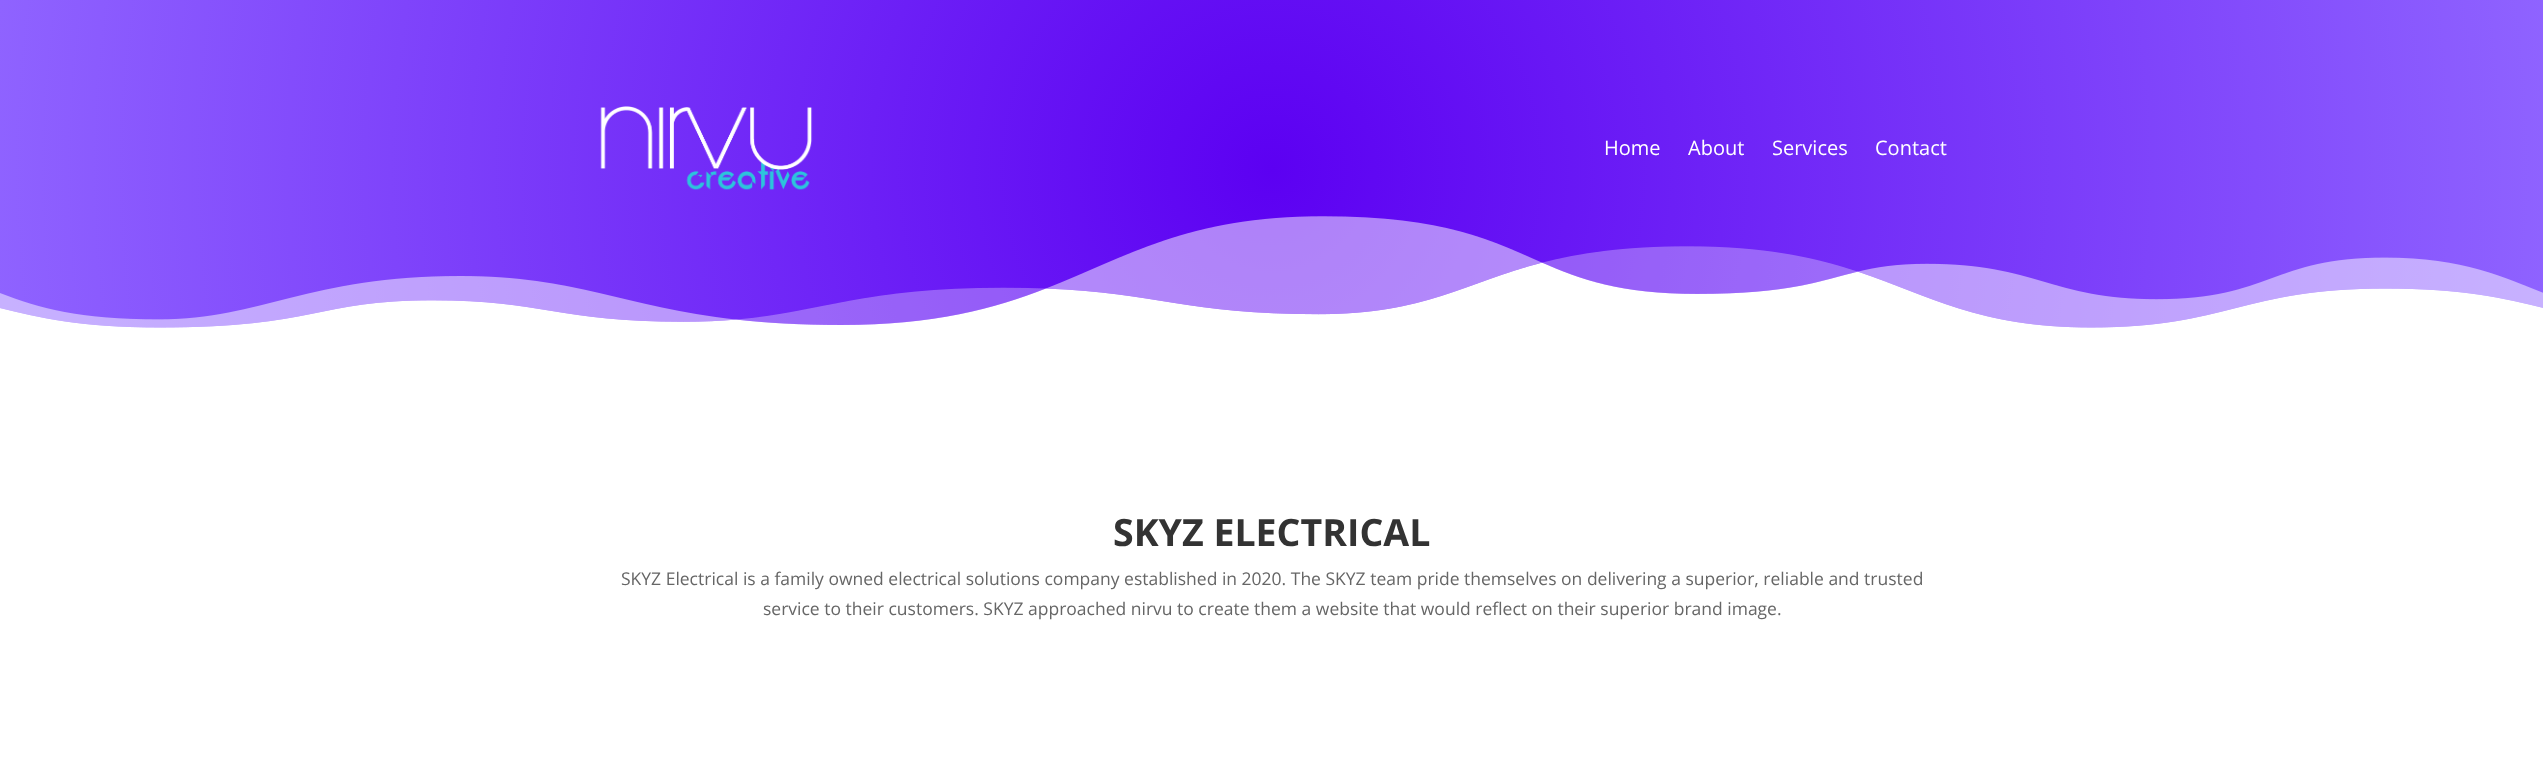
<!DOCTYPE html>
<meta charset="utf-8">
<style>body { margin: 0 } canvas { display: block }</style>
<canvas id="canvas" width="2543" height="767"></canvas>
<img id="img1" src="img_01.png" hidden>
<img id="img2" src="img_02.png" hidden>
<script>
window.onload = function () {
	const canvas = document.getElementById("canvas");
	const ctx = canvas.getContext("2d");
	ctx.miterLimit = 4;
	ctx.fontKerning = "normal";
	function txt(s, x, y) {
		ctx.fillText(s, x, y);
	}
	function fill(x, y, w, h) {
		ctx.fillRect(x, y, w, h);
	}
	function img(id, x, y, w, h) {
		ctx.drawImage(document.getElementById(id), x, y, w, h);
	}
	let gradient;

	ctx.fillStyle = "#FFFFFF";
	fill(0, 0, 2543, 767);
	gradient = ctx.createRadialGradient(1272, 170, 0, 1272, 170, 1283);
	gradient.addColorStop(0, "#5C00F2");
	gradient.addColorStop(1, "#8F63FF");
	ctx.fillStyle = gradient;
	fill(0, 0, 2543, 328);
	img("img1", 600, 106, 213, 84);
	img("img2", 0, 216, 2543, 124);
	ctx.font = "20px Open Sans";
	ctx.fillStyle = "#FFFFFF";
	txt("Home", 1604, 155);
	txt("About", 1688, 155);
	txt("Services", 1772, 155);
	txt("Contact", 1875, 155);
	ctx.font = "bold 37.5px Open Sans";
	ctx.fillStyle = "#333333";
	txt("SKYZ ELECTRICAL", 1113, 546);
	ctx.font = "17.5px Open Sans";
	ctx.fillStyle = "#666666";
	txt("SKYZ Electrical is a family owned electrical solutions company established in 2020. The SKYZ team pride themselves on delivering a superior, reliable and trusted", 621, 585);
	txt("service to their customers. SKYZ approached nirvu to create them a website that would reflect on their superior brand image.", 763, 615);
};
</script>
